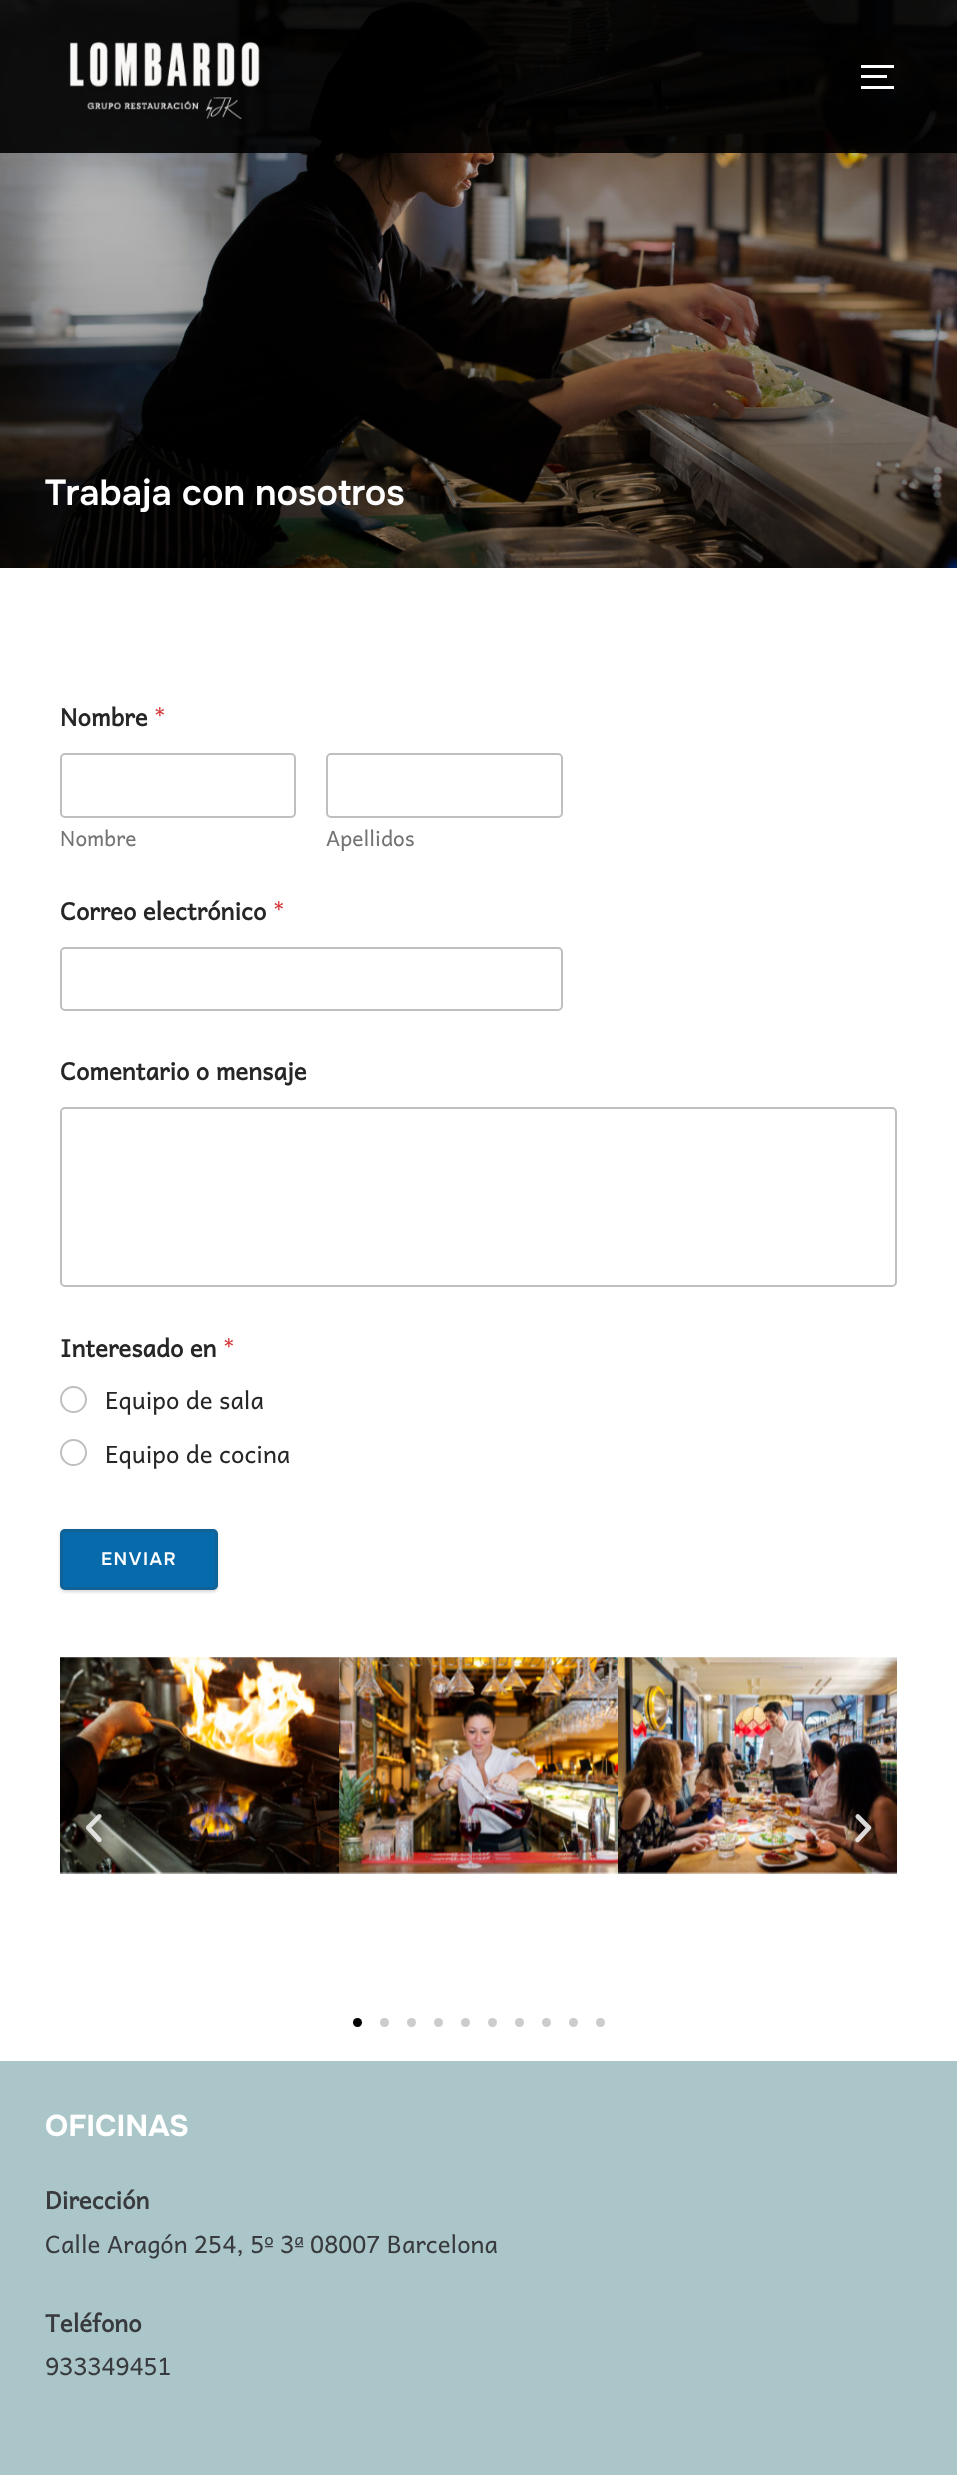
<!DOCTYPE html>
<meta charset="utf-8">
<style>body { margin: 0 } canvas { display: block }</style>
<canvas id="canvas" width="957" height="2475"></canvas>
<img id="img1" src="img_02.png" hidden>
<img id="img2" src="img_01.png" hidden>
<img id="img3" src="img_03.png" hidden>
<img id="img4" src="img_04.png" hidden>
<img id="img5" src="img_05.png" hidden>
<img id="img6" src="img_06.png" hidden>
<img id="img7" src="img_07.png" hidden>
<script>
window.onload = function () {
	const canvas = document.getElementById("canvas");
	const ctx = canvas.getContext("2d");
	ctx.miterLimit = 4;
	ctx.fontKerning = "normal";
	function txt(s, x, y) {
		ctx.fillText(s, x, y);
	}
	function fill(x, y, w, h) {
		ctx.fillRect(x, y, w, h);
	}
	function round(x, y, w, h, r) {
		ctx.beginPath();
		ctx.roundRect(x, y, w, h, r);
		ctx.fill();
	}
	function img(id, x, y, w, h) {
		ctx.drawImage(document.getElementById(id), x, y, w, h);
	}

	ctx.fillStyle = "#FFFFFF";
	fill(0, 0, 957, 2475);
	img("img1", 0, 0, 957, 568);
	ctx.fillStyle = "rgba(0, 0, 0, 0.9)";
	fill(0, 0, 957, 153);
	img("img2", 69, 41, 191, 79);
	ctx.fillStyle = "#FFFFFF";
	fill(861, 65, 33, 3);
	fill(861, 75, 26, 3);
	fill(861, 86, 33, 3);
	ctx.beginPath();
	ctx.roundRect(61, 754, 234, 63, 4);
	ctx.strokeStyle = "#BFBFBF";
	ctx.lineWidth = 2;
	ctx.stroke();
	ctx.beginPath();
	ctx.roundRect(327, 754, 235, 63, 4);
	ctx.stroke();
	ctx.beginPath();
	ctx.roundRect(61, 948, 501, 62, 4);
	ctx.stroke();
	ctx.beginPath();
	ctx.roundRect(61, 1108, 835, 178, 4);
	ctx.stroke();
	ctx.beginPath();
	ctx.arc(73.5, 1399.5, 12.5, 0, Math.PI * 2);
	ctx.stroke();
	ctx.beginPath();
	ctx.arc(73.5, 1452.5, 12.5, 0, Math.PI * 2);
	ctx.stroke();
	ctx.fillStyle = "rgba(0, 0, 0, 0.15)";
	ctx.filter = "blur(1.5px)";
	ctx.beginPath();
	ctx.roundRect(60, 1530, 158, 62, 5);
	ctx.fill();
	ctx.filter = "none";
	ctx.fillStyle = "#066AAB";
	round(60, 1529, 158, 61, 5);
	ctx.beginPath();
	ctx.roundRect(61.5, 1530.5, 155, 58, 3.5);
	ctx.strokeStyle = "rgba(68, 68, 68, 0.19)";
	ctx.lineWidth = 3;
	ctx.stroke();
	img("img3", 60, 1657, 279, 217);
	img("img4", 339, 1657, 279, 217);
	img("img5", 618, 1657, 279, 217);
	img("img6", 86, 1814, 16, 29);
	img("img7", 855, 1814, 17, 29);
	ctx.fillStyle = "#000000";
	ctx.beginPath();
	ctx.arc(357.5, 2022.5, 4.5, 0, Math.PI * 2);
	ctx.fill();
	ctx.fillStyle = "#CCCCCC";
	ctx.beginPath();
	ctx.arc(384.5, 2022.5, 4.5, 0, Math.PI * 2);
	ctx.fill();
	ctx.beginPath();
	ctx.arc(411.5, 2022.5, 4.5, 0, Math.PI * 2);
	ctx.fill();
	ctx.beginPath();
	ctx.arc(438.5, 2022.5, 4.5, 0, Math.PI * 2);
	ctx.fill();
	ctx.beginPath();
	ctx.arc(465.5, 2022.5, 4.5, 0, Math.PI * 2);
	ctx.fill();
	ctx.beginPath();
	ctx.arc(492.5, 2022.5, 4.5, 0, Math.PI * 2);
	ctx.fill();
	ctx.beginPath();
	ctx.arc(519.5, 2022.5, 4.5, 0, Math.PI * 2);
	ctx.fill();
	ctx.beginPath();
	ctx.arc(546.5, 2022.5, 4.5, 0, Math.PI * 2);
	ctx.fill();
	ctx.beginPath();
	ctx.arc(573.5, 2022.5, 4.5, 0, Math.PI * 2);
	ctx.fill();
	ctx.beginPath();
	ctx.arc(600.5, 2022.5, 4.5, 0, Math.PI * 2);
	ctx.fill();
	ctx.fillStyle = "#AAC6C9";
	fill(0, 2061, 957, 414);
	ctx.font = "600 36px Onest";
	ctx.fillStyle = "#FFFFFF";
	txt("Trabaja con nosotros", 45, 505);
	ctx.font = "bold 24px Andika";
	ctx.fillStyle = "#262626";
	txt("Nombre", 60, 726);
	ctx.font = "24px Andika";
	ctx.fillStyle = "#D63637";
	txt("*", 154, 726);
	ctx.font = "21px Andika";
	ctx.fillStyle = "#737373";
	txt("Nombre", 60, 846);
	txt("Apellidos", 326, 846);
	ctx.font = "bold 24px Andika";
	ctx.fillStyle = "#262626";
	txt("Correo electrónico", 60, 920);
	ctx.font = "24px Andika";
	ctx.fillStyle = "#D63637";
	txt("*", 273, 920);
	ctx.font = "bold 24px Andika";
	ctx.fillStyle = "#262626";
	txt("Comentario o mensaje", 60, 1080);
	txt("Interesado en", 60, 1357);
	ctx.font = "24px Andika";
	ctx.fillStyle = "#D63637";
	txt("*", 223, 1357);
	ctx.fillStyle = "#262626";
	txt("Equipo de sala", 105, 1409);
	txt("Equipo de cocina", 105, 1463);
	ctx.letterSpacing = "1.5px";
	ctx.font = "600 18px Onest";
	ctx.fillStyle = "#FFFFFF";
	txt("ENVIAR", 101, 1565);
	ctx.letterSpacing = "0px";
	ctx.font = "bold 30px Onest";
	txt("OFICINAS", 45, 2136);
	ctx.font = "bold 24px Andika";
	ctx.fillStyle = "#393A3D";
	txt("Dirección", 45, 2209);
	ctx.font = "24px Andika";
	txt("Calle Aragón 254, 5º 3ª 08007 Barcelona", 45, 2253);
	ctx.font = "bold 24px Andika";
	txt("Teléfono", 45, 2332);
	ctx.font = "24px Andika";
	txt("933349451", 45, 2375);
};
</script>
